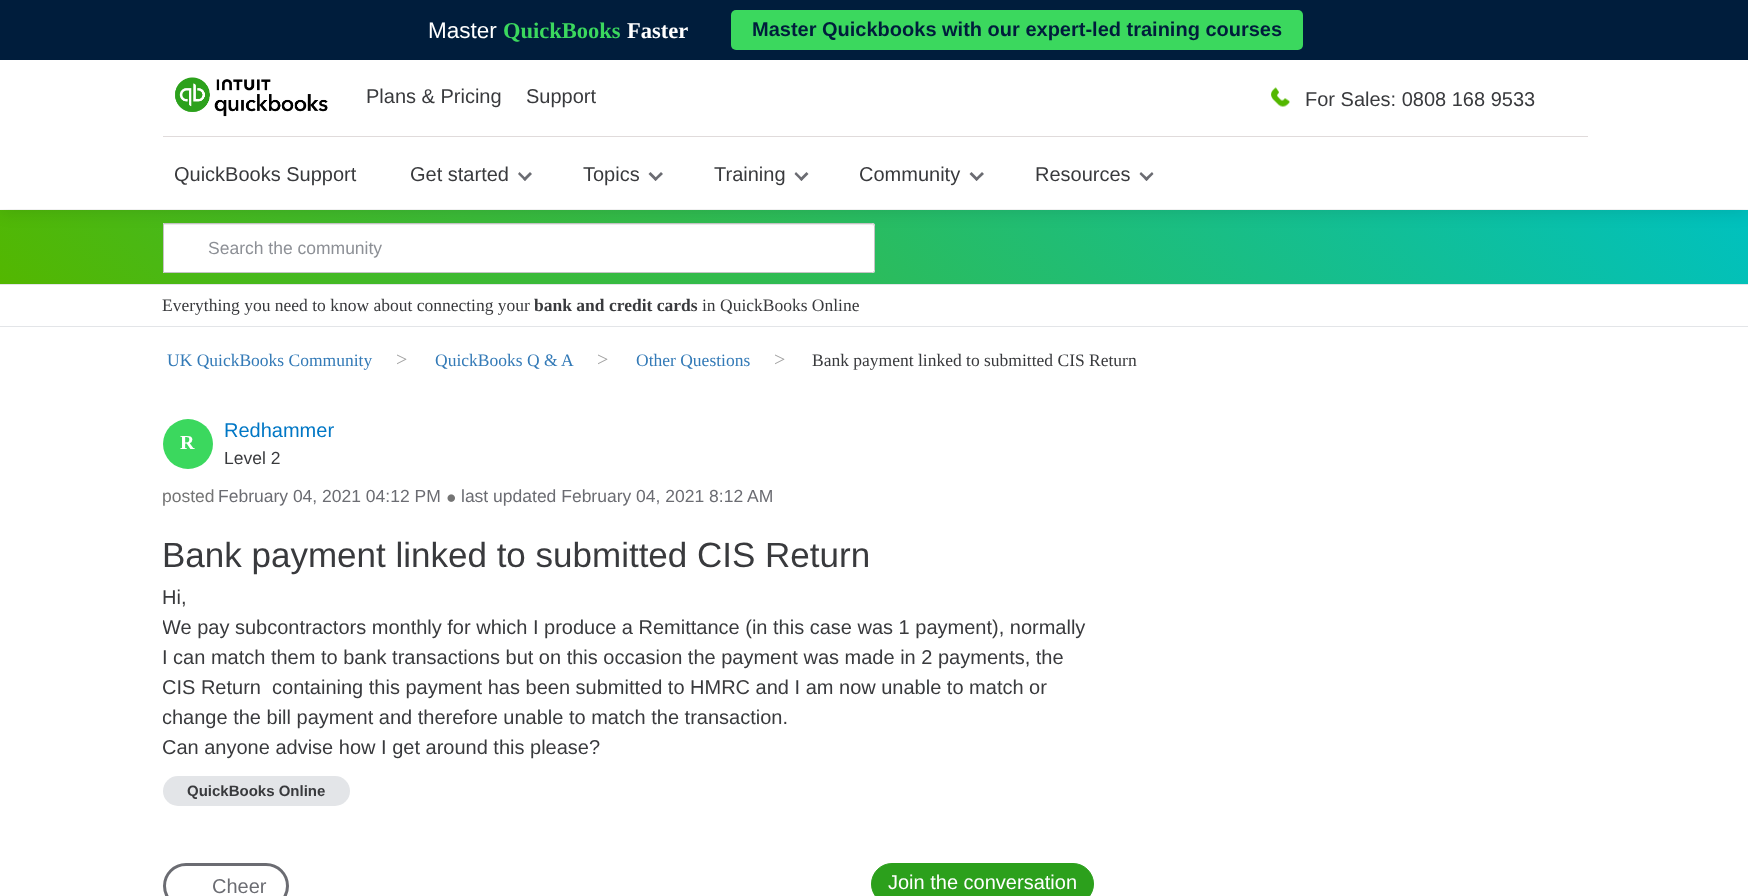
<!DOCTYPE html>
<meta charset="utf-8">
<style>body { margin: 0 } canvas { display: block }</style>
<canvas id="canvas" width="1748" height="896"></canvas>
<img id="img1" src="img_01.png" hidden>
<img id="img2" src="img_02.png" hidden>
<img id="img3" src="img_03.png" hidden>
<script>
window.onload = function () {
	const canvas = document.getElementById("canvas");
	const ctx = canvas.getContext("2d");
	ctx.miterLimit = 4;
	ctx.fontKerning = "normal";
	function txt(s, x, y) {
		ctx.fillText(s, x, y);
	}
	function fill(x, y, w, h) {
		ctx.fillRect(x, y, w, h);
	}
	function round(x, y, w, h, r) {
		ctx.beginPath();
		ctx.roundRect(x, y, w, h, r);
		ctx.fill();
	}
	function img(id, x, y, w, h) {
		ctx.drawImage(document.getElementById(id), x, y, w, h);
	}
	let gradient;

	ctx.fillStyle = "#FFFFFF";
	fill(0, 0, 1748, 896);
	gradient = ctx.createLinearGradient(418, 703, 1330, -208);
	gradient.addColorStop(0, "#53B700");
	gradient.addColorStop(1, "#00C1BF");
	ctx.fillStyle = gradient;
	fill(0, 210, 1748, 74);
	ctx.fillStyle = "#FFFFFF";
	ctx.beginPath();
	ctx.roundRect(163, 223, 712, 50, [0, 2.5, 2.5, 0]);
	ctx.fill();
	ctx.fillStyle = "#ECECEC";
	ctx.beginPath();
	ctx.moveTo(164, 225);
	ctx.lineTo(872, 225);
	ctx.lineTo(874, 226);
	ctx.bezierCurveTo(874, 225, 874, 224, 873, 224);
	ctx.lineTo(164, 224);
	ctx.closePath();
	ctx.fill();
	ctx.beginPath();
	ctx.roundRect(163.5, 223.5, 711, 49, [0, 2, 2, 0]);
	ctx.strokeStyle = "#C4C4C4";
	ctx.stroke();
	ctx.fillStyle = "rgba(0, 0, 0, 0.08)";
	ctx.filter = "blur(7.5px)";
	ctx.beginPath();
	ctx.rect(0, 5, 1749, 209);
	ctx.fill();
	ctx.filter = "none";
	ctx.fillStyle = "#FFFFFF";
	fill(0, 60, 1748, 149);
	ctx.fillStyle = "#001D3C";
	fill(0, 0, 1748, 60);
	ctx.fillStyle = "#3BD85E";
	round(731, 10, 572, 40, 5);
	img("img1", 175, 77, 153, 40);
	img("img2", 1271, 87, 19, 20);
	ctx.fillStyle = "#E0DBDB";
	fill(163, 136, 1425, 1);
	ctx.fillStyle = "#6B6C72";
	ctx.beginPath();
	ctx.moveTo(530, 172);
	ctx.lineTo(532, 174);
	ctx.lineTo(525, 181);
	ctx.lineTo(523, 179);
	ctx.closePath();
	ctx.fill();
	ctx.beginPath();
	ctx.moveTo(519.5, 172);
	ctx.lineTo(526.5, 179);
	ctx.lineTo(525, 181);
	ctx.lineTo(518, 174);
	ctx.closePath();
	ctx.fill();
	ctx.beginPath();
	ctx.moveTo(661, 172);
	ctx.lineTo(663, 174);
	ctx.lineTo(655.5, 181);
	ctx.lineTo(654, 179);
	ctx.closePath();
	ctx.fill();
	ctx.beginPath();
	ctx.moveTo(650.5, 172);
	ctx.lineTo(657.5, 179);
	ctx.lineTo(655.5, 181);
	ctx.lineTo(648.5, 174);
	ctx.closePath();
	ctx.fill();
	ctx.beginPath();
	ctx.moveTo(806.5, 172);
	ctx.lineTo(808.5, 174);
	ctx.lineTo(801.5, 181);
	ctx.lineTo(799.5, 179);
	ctx.closePath();
	ctx.fill();
	ctx.beginPath();
	ctx.moveTo(796, 172);
	ctx.lineTo(803, 179);
	ctx.lineTo(801.5, 181);
	ctx.lineTo(794.5, 174);
	ctx.closePath();
	ctx.fill();
	ctx.beginPath();
	ctx.moveTo(982, 172);
	ctx.lineTo(984, 174);
	ctx.lineTo(976.5, 181);
	ctx.lineTo(975, 179);
	ctx.closePath();
	ctx.fill();
	ctx.beginPath();
	ctx.moveTo(971.5, 172);
	ctx.lineTo(978.5, 179);
	ctx.lineTo(976.5, 181);
	ctx.lineTo(969.5, 174);
	ctx.closePath();
	ctx.fill();
	ctx.beginPath();
	ctx.moveTo(1152, 172);
	ctx.lineTo(1153.5, 174);
	ctx.lineTo(1146.5, 181);
	ctx.lineTo(1144.5, 179);
	ctx.closePath();
	ctx.fill();
	ctx.beginPath();
	ctx.moveTo(1141, 172);
	ctx.lineTo(1148.5, 179);
	ctx.lineTo(1146.5, 181);
	ctx.lineTo(1139.5, 174);
	ctx.closePath();
	ctx.fill();
	ctx.fillStyle = "#E3E5E8";
	fill(0, 284, 1748, 1);
	fill(0, 326, 1748, 1);
	ctx.fillStyle = "#3BD85E";
	ctx.beginPath();
	ctx.arc(188, 444, 25, 0, Math.PI * 2);
	ctx.fill();
	img("img3", 447, 494, 8, 8);
	ctx.fillStyle = "#E3E5E8";
	round(163, 776, 187, 30, 15);
	ctx.beginPath();
	ctx.roundRect(164.5, 864.5, 123, 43, 21.5);
	ctx.strokeStyle = "#6B6C72";
	ctx.lineWidth = 3;
	ctx.stroke();
	ctx.fillStyle = "#2CA01C";
	ctx.beginPath();
	ctx.roundRect(871.5, 863.5, 222, 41, 20.5);
	ctx.fill();
	ctx.strokeStyle = "#2CA01C";
	ctx.lineWidth = 1;
	ctx.stroke();
	ctx.font = "22.5px Liberation Sans";
	ctx.fillStyle = "#FFFFFF";
	txt("Master", 428, 38);
	ctx.font = "bold 22.5px Liberation Serif";
	ctx.fillStyle = "#3BD85E";
	txt("QuickBooks", 503, 38);
	ctx.fillStyle = "#FFFFFF";
	txt("Faster", 627, 38);
	ctx.font = "bold 20px Liberation Sans";
	ctx.fillStyle = "#001D3C";
	txt("Master Quickbooks with our expert-led training courses", 752, 36);
	ctx.font = "20px Liberation Sans";
	ctx.fillStyle = "#393A3D";
	txt("Plans & Pricing", 366, 103);
	txt("Support", 526, 103);
	txt("For Sales: 0808 168 9533", 1305, 106);
	txt("QuickBooks Support", 174, 181);
	txt("Get started", 410, 181);
	txt("Topics", 583, 181);
	txt("Training", 714, 181);
	txt("Community", 859, 181);
	txt("Resources", 1035, 181);
	ctx.font = "17.5px Liberation Sans";
	ctx.fillStyle = "#8D9096";
	txt("Search the community", 208, 254);
	ctx.font = "17.5px Liberation Serif";
	ctx.fillStyle = "#393A3D";
	txt("Everything you need to know about connecting your", 162, 311);
	ctx.font = "bold 17.5px Liberation Serif";
	txt("bank and credit cards", 534, 311);
	ctx.font = "17.5px Liberation Serif";
	txt("in QuickBooks Online", 702, 311);
	ctx.fillStyle = "#337AB7";
	txt("UK QuickBooks Community", 167, 366);
	ctx.font = "20px Liberation Serif";
	ctx.fillStyle = "#A1A1A1";
	txt(">", 396, 366);
	ctx.font = "17.5px Liberation Serif";
	ctx.fillStyle = "#337AB7";
	txt("QuickBooks Q & A", 435, 366);
	ctx.font = "20px Liberation Serif";
	ctx.fillStyle = "#A1A1A1";
	txt(">", 597, 366);
	ctx.font = "17.5px Liberation Serif";
	ctx.fillStyle = "#337AB7";
	txt("Other Questions", 636, 366);
	ctx.font = "20px Liberation Serif";
	ctx.fillStyle = "#A1A1A1";
	txt(">", 774, 366);
	ctx.font = "17.5px Liberation Serif";
	ctx.fillStyle = "#393A3D";
	txt("Bank payment linked to submitted CIS Return", 812, 366);
	ctx.font = "20px Liberation Sans";
	ctx.fillStyle = "#0077C5";
	txt("Redhammer", 224, 437);
	ctx.font = "bold 20px Liberation Serif";
	ctx.fillStyle = "#FFFFFF";
	txt("R", 180, 449);
	ctx.font = "17.5px Liberation Sans";
	ctx.fillStyle = "#393A3D";
	txt("Level 2", 224, 464);
	ctx.fillStyle = "#747474";
	txt("posted", 162, 502);
	ctx.fillStyle = "#6B6C72";
	txt("February 04, 2021 04:12 PM", 218, 502);
	txt("last updated February 04, 2021 8:12 AM", 461, 502);
	ctx.font = "35px Liberation Sans";
	ctx.fillStyle = "#393A3D";
	txt("Bank payment linked to submitted CIS Return", 162, 567);
	ctx.font = "20px Liberation Sans";
	txt("Hi,", 162, 604);
	ctx.save();
	ctx.beginPath();
	ctx.rect(163, 584, 931, 180);
	ctx.clip();
	txt("We pay subcontractors monthly for which I produce a Remittance (in this case was 1 payment), normally", 162, 634);
	ctx.restore();
	txt("I can match them to bank transactions but on this occasion the payment was made in 2 payments, the", 162, 664);
	txt("CIS Return  containing this payment has been submitted to HMRC and I am now unable to match or", 162, 694);
	ctx.save();
	ctx.beginPath();
	ctx.rect(163, 584, 931, 180);
	ctx.clip();
	txt("change the bill payment and therefore unable to match the transaction.", 162, 724);
	ctx.restore();
	txt("Can anyone advise how I get around this please?", 162, 754);
	ctx.font = "bold 15px Liberation Sans";
	txt("QuickBooks Online", 187, 796);
	ctx.font = "20px Liberation Sans";
	ctx.fillStyle = "#6B6C72";
	txt("Cheer", 212, 893);
	ctx.fillStyle = "#FFFFFF";
	txt("Join the conversation", 888, 889);
};
</script>
